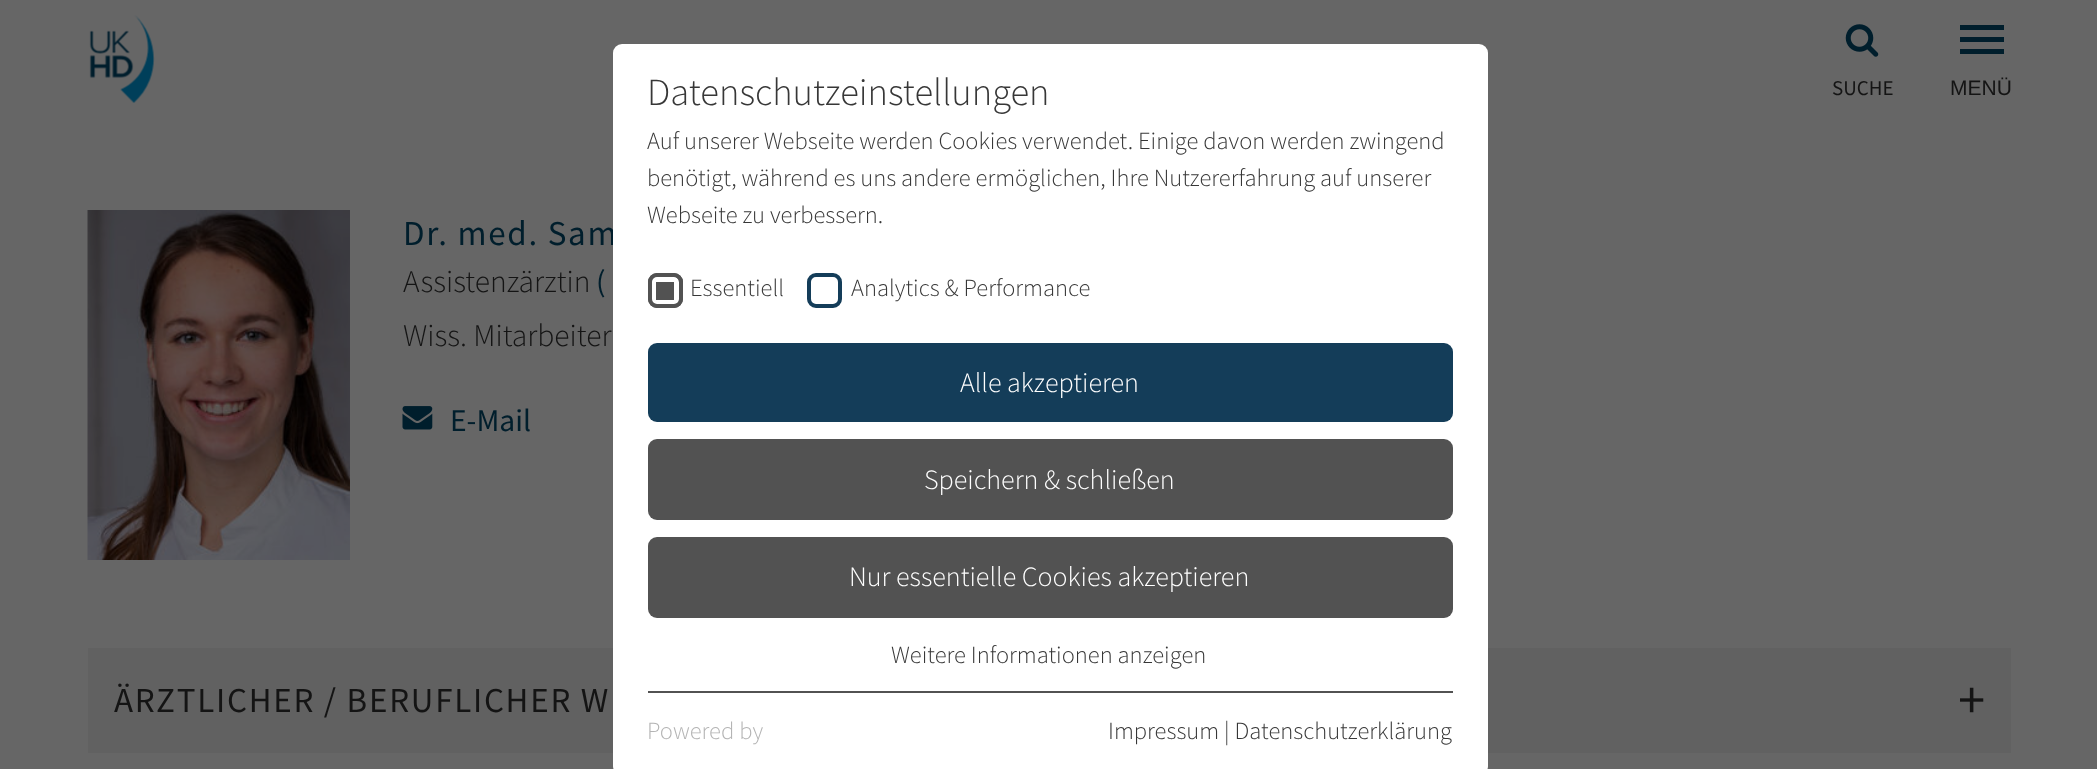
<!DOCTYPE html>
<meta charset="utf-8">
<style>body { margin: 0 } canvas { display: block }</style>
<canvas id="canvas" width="2097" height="769"></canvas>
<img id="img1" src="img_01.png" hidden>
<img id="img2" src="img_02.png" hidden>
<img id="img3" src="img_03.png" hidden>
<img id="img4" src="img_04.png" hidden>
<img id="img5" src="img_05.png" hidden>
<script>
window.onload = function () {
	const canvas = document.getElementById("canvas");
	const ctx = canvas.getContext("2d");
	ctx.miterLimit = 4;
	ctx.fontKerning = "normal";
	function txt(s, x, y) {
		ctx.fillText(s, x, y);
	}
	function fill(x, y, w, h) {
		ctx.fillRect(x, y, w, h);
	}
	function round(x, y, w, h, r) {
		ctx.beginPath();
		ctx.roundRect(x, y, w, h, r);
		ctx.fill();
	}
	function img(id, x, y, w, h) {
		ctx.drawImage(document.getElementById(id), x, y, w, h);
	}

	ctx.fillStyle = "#666666";
	fill(0, 0, 2097, 769);
	img("img1", 89, 15, 66, 88);
	img("img2", 1845, 24, 34, 33);
	ctx.fillStyle = "#001E2C";
	fill(1960, 25, 44, 5);
	fill(1960, 37, 44, 5);
	fill(1960, 49, 44, 5);
	img("img3", 87, 210, 263, 350);
	img("img4", 402, 406, 31, 24);
	ctx.fillStyle = "#616161";
	fill(88, 648, 1923, 105);
	img("img5", 1960, 687, 24, 26);
	ctx.font = "21px Source Sans Pro";
	ctx.fillStyle = "#141414";
	txt("SUCHE", 1832, 95);
	ctx.font = "21px Liberation Sans";
	txt("MENÜ", 1950, 95);
	ctx.letterSpacing = "1.75px";
	ctx.font = "35px Source Sans Pro";
	ctx.fillStyle = "#001E2C";
	txt("Dr. med. Sam", 403, 245);
	ctx.letterSpacing = "0px";
	ctx.font = "300 31.5px Source Sans Pro";
	ctx.fillStyle = "#141414";
	txt("Assistenzärztin", 403, 292);
	ctx.font = "31.5px Source Sans Pro";
	ctx.fillStyle = "#001E2C";
	txt("(", 596, 292);
	ctx.font = "300 31.5px Source Sans Pro";
	ctx.fillStyle = "#141414";
	txt("Wiss. Mitarbeiter", 403, 346);
	ctx.font = "31.5px Source Sans Pro";
	ctx.fillStyle = "#001E2C";
	txt("E-Mail", 450, 431);
	ctx.letterSpacing = "1.75px";
	ctx.font = "35px Source Sans Pro";
	ctx.fillStyle = "#141414";
	txt("ÄRZTLICHER / BERUFLICHER W", 114, 712);
	ctx.fillStyle = "#FFFFFF";
	round(613, 44, 875, 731, 9);
	ctx.letterSpacing = "0px";
	ctx.font = "300 38.5px Source Sans Pro";
	ctx.fillStyle = "#373737";
	txt("Datenschutzeinstellungen", 647, 105);
	ctx.font = "300 24.5px Source Sans Pro";
	txt("Auf unserer Webseite werden Cookies verwendet. Einige davon werden zwingend", 647, 149);
	txt("benötigt, während es uns andere ermöglichen, Ihre Nutzererfahrung auf unserer", 647, 186);
	txt("Webseite zu verbessern.", 647, 223);
	ctx.fillStyle = "#525252";
	round(648, 273, 35, 35, 9);
	ctx.beginPath();
	ctx.roundRect(653.5, 279.5, 23, 23, 2.5);
	ctx.strokeStyle = "#FFFFFF";
	ctx.lineWidth = 5;
	ctx.stroke();
	ctx.beginPath();
	ctx.roundRect(650, 275, 31, 31, 7);
	ctx.strokeStyle = "#525252";
	ctx.lineWidth = 4;
	ctx.stroke();
	ctx.fillStyle = "#373737";
	txt("Essentiell", 690, 296);
	ctx.beginPath();
	ctx.roundRect(809, 275, 31, 31, 7);
	ctx.strokeStyle = "#143D59";
	ctx.stroke();
	txt("Analytics & Performance", 851, 296);
	ctx.fillStyle = "#143D59";
	round(648, 343, 805, 79, 9);
	ctx.font = "300 28px Source Sans Pro";
	ctx.fillStyle = "#FFFFFF";
	txt("Alle akzeptieren", 960, 392);
	ctx.fillStyle = "#525252";
	round(648, 439, 805, 81, 9);
	ctx.fillStyle = "#FFFFFF";
	txt("Speichern & schließen", 924, 489);
	ctx.fillStyle = "#525252";
	round(648, 537, 805, 81, 9);
	ctx.fillStyle = "#FFFFFF";
	txt("Nur essentielle Cookies akzeptieren", 849, 586);
	ctx.font = "300 24.5px Source Sans Pro";
	ctx.fillStyle = "#373737";
	txt("Weitere Informationen anzeigen", 891, 663);
	ctx.fillStyle = "#525252";
	fill(648, 691, 805, 2);
	ctx.fillStyle = "#B4B4B4";
	txt("Powered by", 647, 739);
	ctx.fillStyle = "#373737";
	txt("Impressum | Datenschutzerklärung", 1108, 739);
};
</script>
